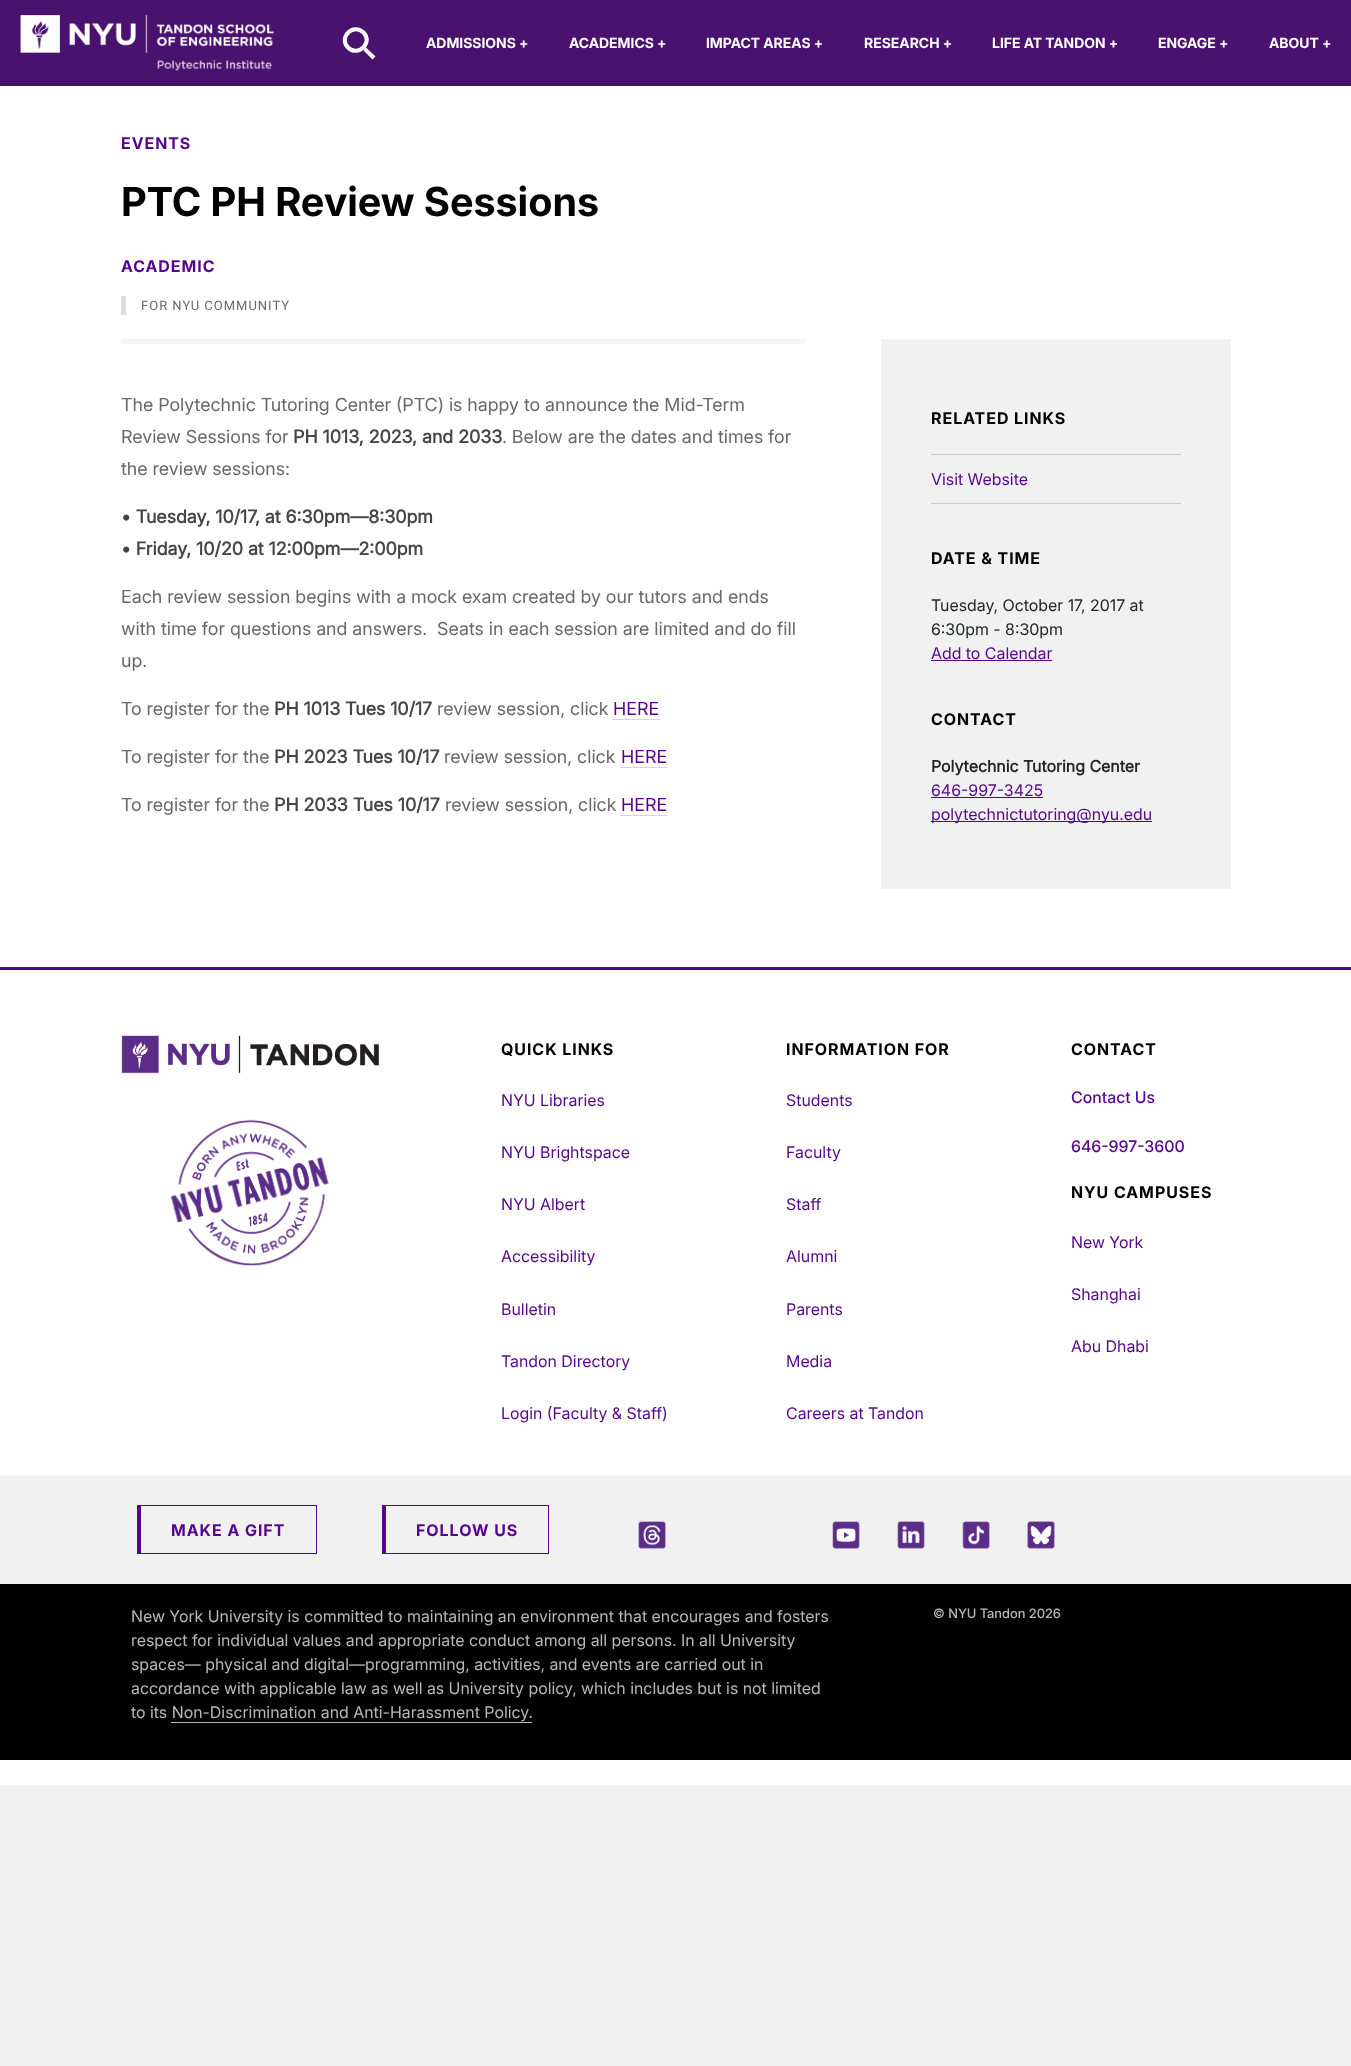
<!DOCTYPE html>
<meta charset="utf-8">
<style>body { margin: 0 } canvas { display: block }</style>
<canvas id="canvas" width="1351" height="2066"></canvas>
<img id="img1" src="img_01.png" hidden>
<img id="img2" src="img_02.png" hidden>
<img id="img3" src="img_03.png" hidden>
<img id="img4" src="img_04.png" hidden>
<img id="img5" src="img_05.png" hidden>
<img id="img6" src="img_06.png" hidden>
<img id="img7" src="img_07.png" hidden>
<img id="img8" src="img_08.png" hidden>
<script>
window.onload = function () {
	const canvas = document.getElementById("canvas");
	const ctx = canvas.getContext("2d");
	ctx.miterLimit = 4;
	ctx.fontKerning = "normal";
	function txt(s, x, y) {
		ctx.fillText(s, x, y);
	}
	function fill(x, y, w, h) {
		ctx.fillRect(x, y, w, h);
	}
	function img(id, x, y, w, h) {
		ctx.drawImage(document.getElementById(id), x, y, w, h);
	}

	ctx.fillStyle = "#F1F1F1";
	fill(0, 0, 1351, 2066);
	ctx.fillStyle = "#FFFFFF";
	fill(0, 86, 1351, 1699);
	ctx.fillStyle = "#4A126F";
	fill(0, 0, 1351, 86);
	img("img1", 20, 15, 255, 56);
	ctx.fillStyle = "#FFFFFF";
	ctx.beginPath();
	ctx.moveTo(363.5, 50.5);
	ctx.lineTo(366, 47.5);
	ctx.lineTo(375.5, 56.5);
	ctx.lineTo(372.5, 59.5);
	ctx.closePath();
	ctx.fill();
	ctx.beginPath();
	ctx.moveTo(363.5, 32.5);
	ctx.bezierCurveTo(373.5, 42.5, 358, 57.5, 348, 47.5);
	ctx.bezierCurveTo(338, 37.5, 353.5, 22.5, 363.5, 32.5);
	ctx.closePath();
	ctx.strokeStyle = "#FFFFFF";
	ctx.lineWidth = 4;
	ctx.stroke();
	ctx.fillStyle = "#DDDDDD";
	fill(121, 296, 5, 19);
	ctx.fillStyle = "#F5F5F5";
	fill(121, 339, 684, 5);
	ctx.fillStyle = "#DDCDE8";
	fill(613, 719, 47, 1);
	fill(621, 767, 46, 1);
	fill(621, 815, 46, 1);
	ctx.fillStyle = "#F1F1F1";
	fill(881, 339, 350, 550);
	ctx.fillStyle = "#CCCCCC";
	fill(931, 454, 250, 1);
	fill(931, 503, 250, 1);
	ctx.fillStyle = "#57068C";
	fill(931, 660, 121, 1);
	fill(931, 797, 112, 1);
	fill(931, 821, 221, 1);
	fill(0, 967, 1351, 3);
	img("img2", 121, 1035, 258, 39);
	img("img3", 170, 1119, 159, 147);
	ctx.fillStyle = "#F1F1F1";
	fill(0, 1475, 1351, 109);
	ctx.fillStyle = "#57068C";
	fill(137, 1505, 180, 1);
	fill(316, 1505, 1, 49);
	fill(137, 1553, 180, 1);
	fill(137, 1505, 4, 49);
	fill(382, 1505, 167, 1);
	fill(548, 1505, 1, 49);
	fill(382, 1553, 167, 1);
	fill(382, 1505, 4, 49);
	img("img4", 638, 1521, 28, 28);
	img("img5", 832, 1521, 28, 28);
	img("img6", 897, 1521, 28, 28);
	img("img7", 962, 1521, 28, 28);
	img("img8", 1027, 1521, 28, 28);
	ctx.fillStyle = "#000000";
	fill(0, 1584, 1351, 176);
	ctx.fillStyle = "#B8B8B8";
	fill(171, 1722, 361, 1);
	ctx.font = "bold 14px Inter";
	ctx.fillStyle = "#FFFFFF";
	txt("ADMISSIONS +", 426, 48);
	txt("ACADEMICS +", 569, 48);
	txt("IMPACT AREAS +", 706, 48);
	txt("RESEARCH +", 864, 48);
	txt("LIFE AT TANDON +", 992, 48);
	txt("ENGAGE +", 1158, 48);
	txt("ABOUT +", 1269, 48);
	ctx.letterSpacing = "1px";
	ctx.font = "bold 16px Inter";
	ctx.fillStyle = "#57068C";
	txt("EVENTS", 121, 149);
	ctx.letterSpacing = "0px";
	ctx.font = "bold 40px Inter";
	ctx.fillStyle = "#000000";
	txt("PTC PH Review Sessions", 121, 216);
	ctx.letterSpacing = "1px";
	ctx.font = "bold 16px Inter";
	ctx.fillStyle = "#57068C";
	txt("ACADEMIC", 121, 272);
	ctx.font = "13px Roboto";
	ctx.fillStyle = "#686868";
	txt("FOR NYU COMMUNITY", 141, 310);
	ctx.letterSpacing = "0px";
	ctx.font = "18px 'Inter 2'";
	txt("The Polytechnic Tutoring Center (PTC) is happy to announce the Mid-Term", 121, 411);
	txt("Review Sessions for", 121, 443);
	ctx.font = "bold 18px 'Inter 2'";
	ctx.fillStyle = "#454545";
	txt("PH 1013, 2023, and 2033", 293, 443);
	ctx.font = "18px 'Inter 2'";
	ctx.fillStyle = "#686868";
	txt(". Below are the dates and times for", 502, 443);
	txt("the review sessions:", 121, 475);
	ctx.font = "bold 18px 'Inter 2'";
	ctx.fillStyle = "#454545";
	txt("• Tuesday, 10/17, at 6:30pm—8:30pm", 121, 523);
	txt("• Friday, 10/20 at 12:00pm—2:00pm", 121, 555);
	ctx.font = "18px 'Inter 2'";
	ctx.fillStyle = "#686868";
	txt("Each review session begins with a mock exam created by our tutors and ends", 121, 603);
	txt("with time for questions and answers.  Seats in each session are limited and do fill", 121, 635);
	txt("up.", 121, 667);
	txt("To register for the", 121, 715);
	ctx.font = "bold 18px 'Inter 2'";
	ctx.fillStyle = "#454545";
	txt("PH 1013 Tues 10/17", 274, 715);
	ctx.font = "18px 'Inter 2'";
	ctx.fillStyle = "#686868";
	txt("review session, click", 437, 715);
	ctx.fillStyle = "#57068C";
	txt("HERE", 613, 715);
	ctx.fillStyle = "#686868";
	txt("To register for the", 121, 763);
	ctx.font = "bold 18px 'Inter 2'";
	ctx.fillStyle = "#454545";
	txt("PH 2023 Tues 10/17", 274, 763);
	ctx.font = "18px 'Inter 2'";
	ctx.fillStyle = "#686868";
	txt("review session, click", 444, 763);
	ctx.fillStyle = "#57068C";
	txt("HERE", 621, 763);
	ctx.fillStyle = "#686868";
	txt("To register for the", 121, 811);
	ctx.font = "bold 18px 'Inter 2'";
	ctx.fillStyle = "#454545";
	txt("PH 2033 Tues 10/17", 274, 811);
	ctx.font = "18px 'Inter 2'";
	ctx.fillStyle = "#686868";
	txt("review session, click", 445, 811);
	ctx.fillStyle = "#57068C";
	txt("HERE", 621, 811);
	ctx.letterSpacing = "1px";
	ctx.font = "bold 16px Inter";
	ctx.fillStyle = "#000000";
	txt("RELATED LINKS", 931, 424);
	ctx.letterSpacing = "0px";
	ctx.font = "16px Inter";
	ctx.fillStyle = "#57068C";
	txt("Visit Website", 931, 485);
	ctx.letterSpacing = "1px";
	ctx.font = "bold 16px Inter";
	ctx.fillStyle = "#000000";
	txt("DATE & TIME", 931, 564);
	ctx.letterSpacing = "0px";
	ctx.font = "16px Inter";
	ctx.fillStyle = "#212529";
	txt("Tuesday, October 17, 2017 at", 931, 611);
	txt("6:30pm - 8:30pm", 931, 635);
	ctx.fillStyle = "#57068C";
	txt("Add to Calendar", 931, 659);
	ctx.letterSpacing = "1px";
	ctx.font = "bold 16px Inter";
	ctx.fillStyle = "#000000";
	txt("CONTACT", 931, 725);
	ctx.letterSpacing = "0px";
	ctx.font = "bold 16px 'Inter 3'";
	ctx.fillStyle = "#212529";
	txt("Polytechnic Tutoring Center", 931, 772);
	ctx.font = "16px Inter";
	ctx.fillStyle = "#57068C";
	txt("646-997-3425", 931, 796);
	txt("polytechnictutoring@nyu.edu", 931, 820);
	ctx.letterSpacing = "1px";
	ctx.font = "bold 16px Inter";
	ctx.fillStyle = "#000000";
	txt("QUICK LINKS", 501, 1055);
	ctx.letterSpacing = "0px";
	ctx.font = "16px Inter";
	ctx.fillStyle = "#57068C";
	txt("NYU Libraries", 501, 1106);
	txt("NYU Brightspace", 501, 1158);
	txt("NYU Albert", 501, 1210);
	txt("Accessibility", 501, 1262);
	txt("Bulletin", 501, 1315);
	txt("Tandon Directory", 501, 1367);
	txt("Login (Faculty & Staff)", 501, 1419);
	ctx.letterSpacing = "1px";
	ctx.font = "bold 16px Inter";
	ctx.fillStyle = "#000000";
	txt("INFORMATION FOR", 786, 1055);
	ctx.letterSpacing = "0px";
	ctx.font = "16px Inter";
	ctx.fillStyle = "#57068C";
	txt("Students", 786, 1106);
	txt("Faculty", 786, 1158);
	txt("Staff", 786, 1210);
	txt("Alumni", 786, 1262);
	txt("Parents", 786, 1315);
	txt("Media", 786, 1367);
	txt("Careers at Tandon", 786, 1419);
	ctx.letterSpacing = "1px";
	ctx.font = "bold 16px Inter";
	ctx.fillStyle = "#000000";
	txt("CONTACT", 1071, 1055);
	ctx.letterSpacing = "0px";
	ctx.font = "500 16px Inter";
	ctx.fillStyle = "#57068C";
	txt("Contact Us", 1071, 1103);
	txt("646-997-3600", 1071, 1152);
	ctx.letterSpacing = "1px";
	ctx.font = "bold 16px Inter";
	ctx.fillStyle = "#000000";
	txt("NYU CAMPUSES", 1071, 1198);
	ctx.letterSpacing = "0px";
	ctx.font = "16px Inter";
	ctx.fillStyle = "#57068C";
	txt("New York", 1071, 1248);
	txt("Shanghai", 1071, 1300);
	txt("Abu Dhabi", 1071, 1352);
	ctx.letterSpacing = "1px";
	ctx.font = "bold 16px Inter";
	txt("MAKE A GIFT", 171, 1536);
	txt("FOLLOW US", 416, 1536);
	ctx.letterSpacing = "0px";
	ctx.font = "16px Inter";
	ctx.fillStyle = "#B8B8B8";
	txt("New York University is committed to maintaining an environment that encourages and fosters", 131, 1622);
	txt("respect for individual values and appropriate conduct among all persons. In all University", 131, 1646);
	txt("spaces— physical and digital—programming, activities, and events are carried out in", 131, 1670);
	txt("accordance with applicable law as well as University policy, which includes but is not limited", 131, 1694);
	txt("to its Non-Discrimination and Anti-Harassment Policy.", 131, 1718);
	ctx.font = "500 13px Inter";
	txt("© NYU Tandon 2026", 933, 1618);
};
</script>
